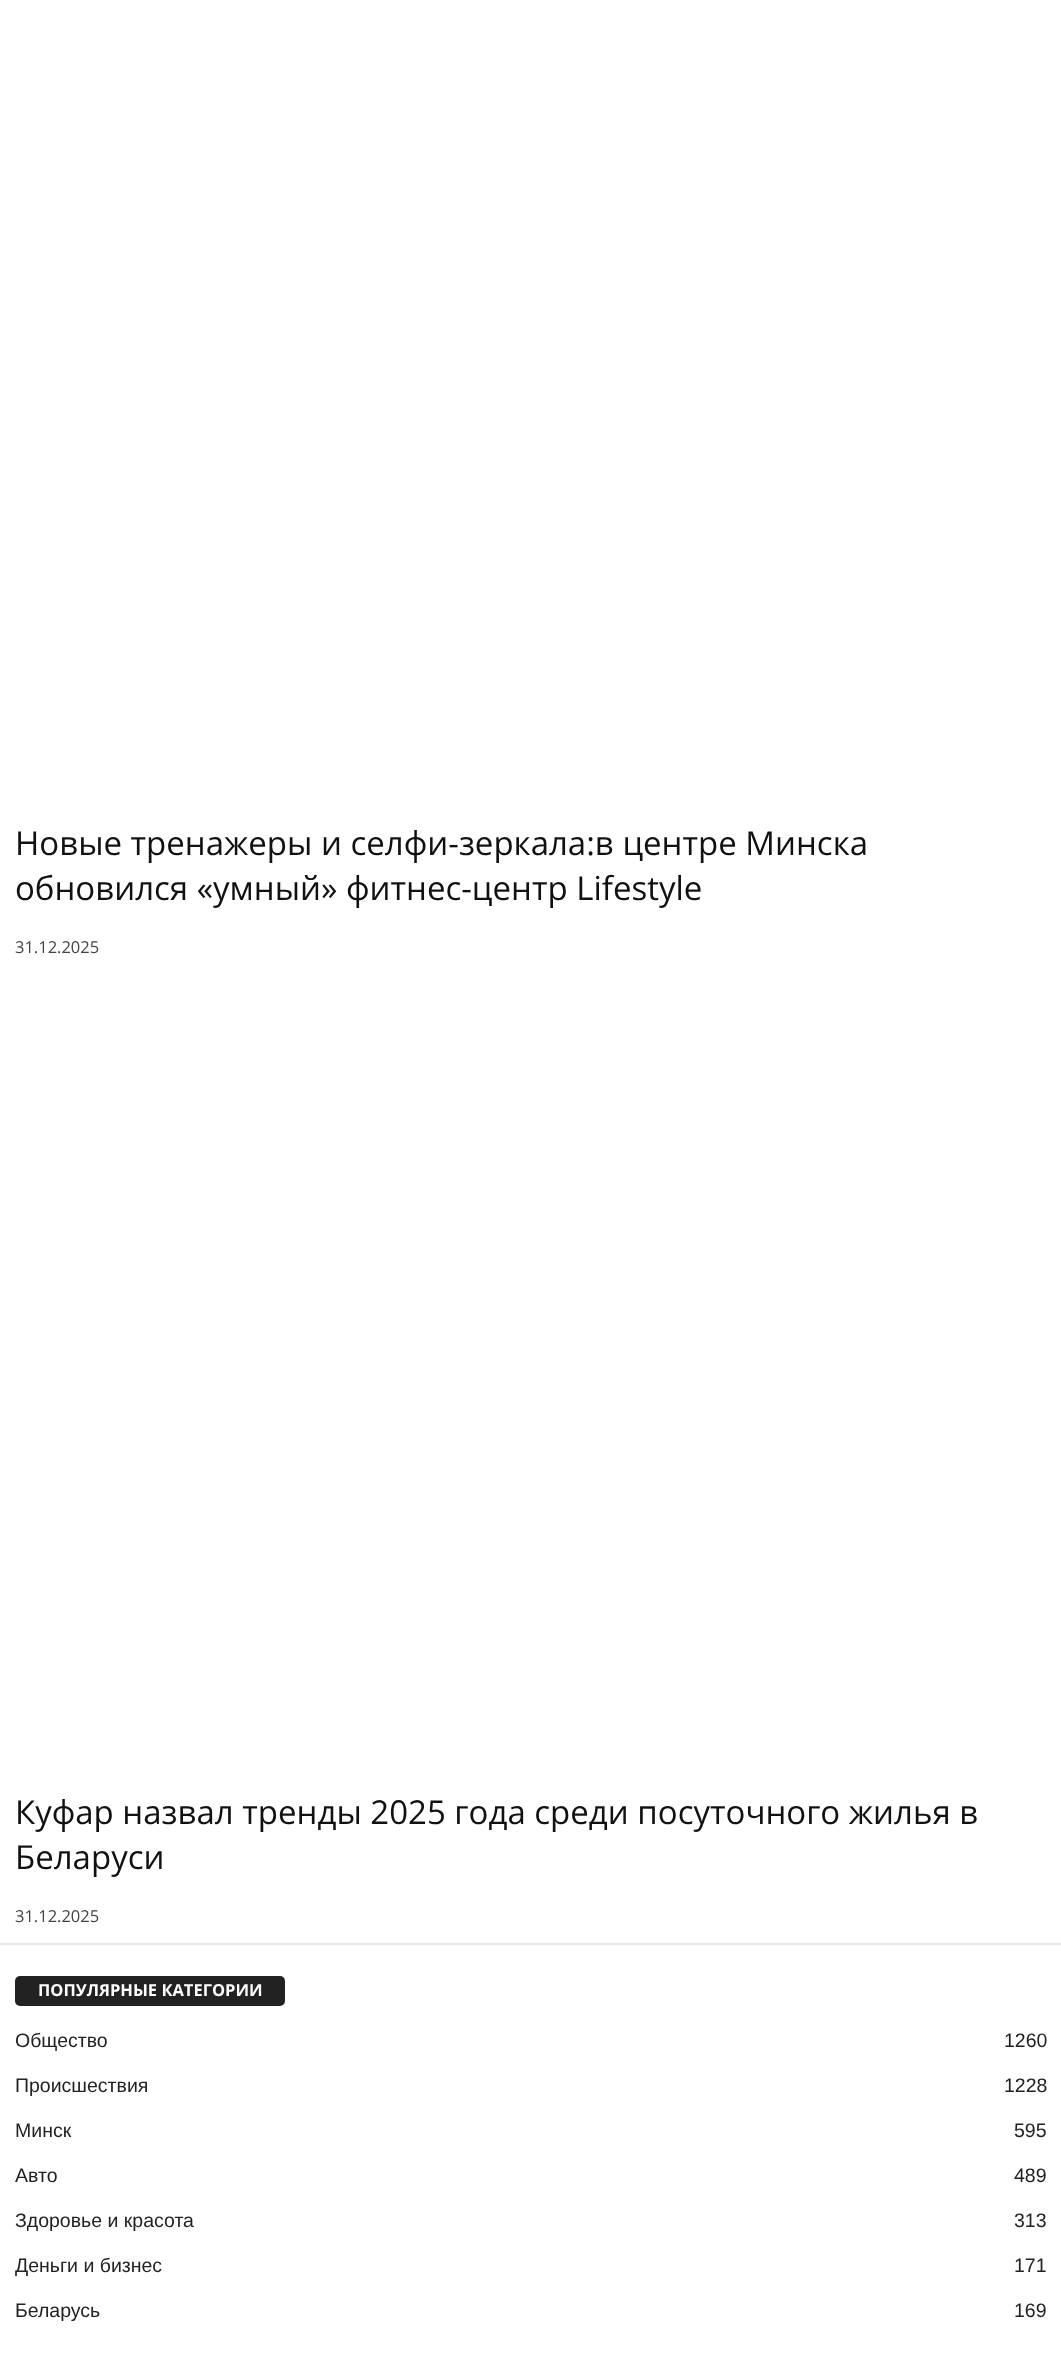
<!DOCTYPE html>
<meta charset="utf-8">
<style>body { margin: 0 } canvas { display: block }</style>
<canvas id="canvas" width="1061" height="2354"></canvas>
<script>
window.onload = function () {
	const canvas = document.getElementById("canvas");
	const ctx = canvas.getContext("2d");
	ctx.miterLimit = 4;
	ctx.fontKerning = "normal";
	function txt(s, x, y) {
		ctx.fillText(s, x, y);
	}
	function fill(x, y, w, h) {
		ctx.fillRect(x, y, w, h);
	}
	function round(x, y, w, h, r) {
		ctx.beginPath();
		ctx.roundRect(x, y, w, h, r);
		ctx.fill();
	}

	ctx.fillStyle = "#FFFFFF";
	fill(0, 0, 1061, 2354);
	ctx.fillStyle = "#E6E6E6";
	fill(0, 1943, 1061, 2);
	ctx.fillStyle = "#222222";
	round(15, 1976, 270, 30, 5);
	ctx.font = "33px Open Sans";
	ctx.fillStyle = "#111111";
	txt("Новые тренажеры и селфи-зеркала:в центре Минска", 15, 855);
	txt("обновился «умный» фитнес-центр Lifestyle", 15, 900);
	ctx.font = "16.5px Open Sans";
	ctx.fillStyle = "#444444";
	txt("31.12.2025", 15, 953);
	ctx.font = "33px Open Sans";
	ctx.fillStyle = "#111111";
	txt("Куфар назвал тренды 2025 года среди посуточного жилья в", 15, 1824);
	txt("Беларуси", 15, 1869);
	ctx.font = "16.5px Open Sans";
	ctx.fillStyle = "#444444";
	txt("31.12.2025", 15, 1922);
	ctx.font = "bold 16.5px Open Sans";
	ctx.fillStyle = "#FFFFFF";
	txt("ПОПУЛЯРНЫЕ КАТЕГОРИИ", 38, 1996);
	ctx.font = "19.5px Liberation Sans";
	ctx.fillStyle = "#222222";
	txt("Общество", 15, 2047);
	txt("1260", 1004, 2047);
	txt("Происшествия", 15, 2092);
	txt("1228", 1004, 2092);
	txt("Минск", 15, 2137);
	txt("595", 1014, 2137);
	txt("Авто", 15, 2182);
	txt("489", 1014, 2182);
	txt("Здоровье и красота", 15, 2227);
	txt("313", 1014, 2227);
	txt("Деньги и бизнес", 15, 2272);
	txt("171", 1014, 2272);
	txt("Беларусь", 15, 2317);
	txt("169", 1014, 2317);
};
</script>
